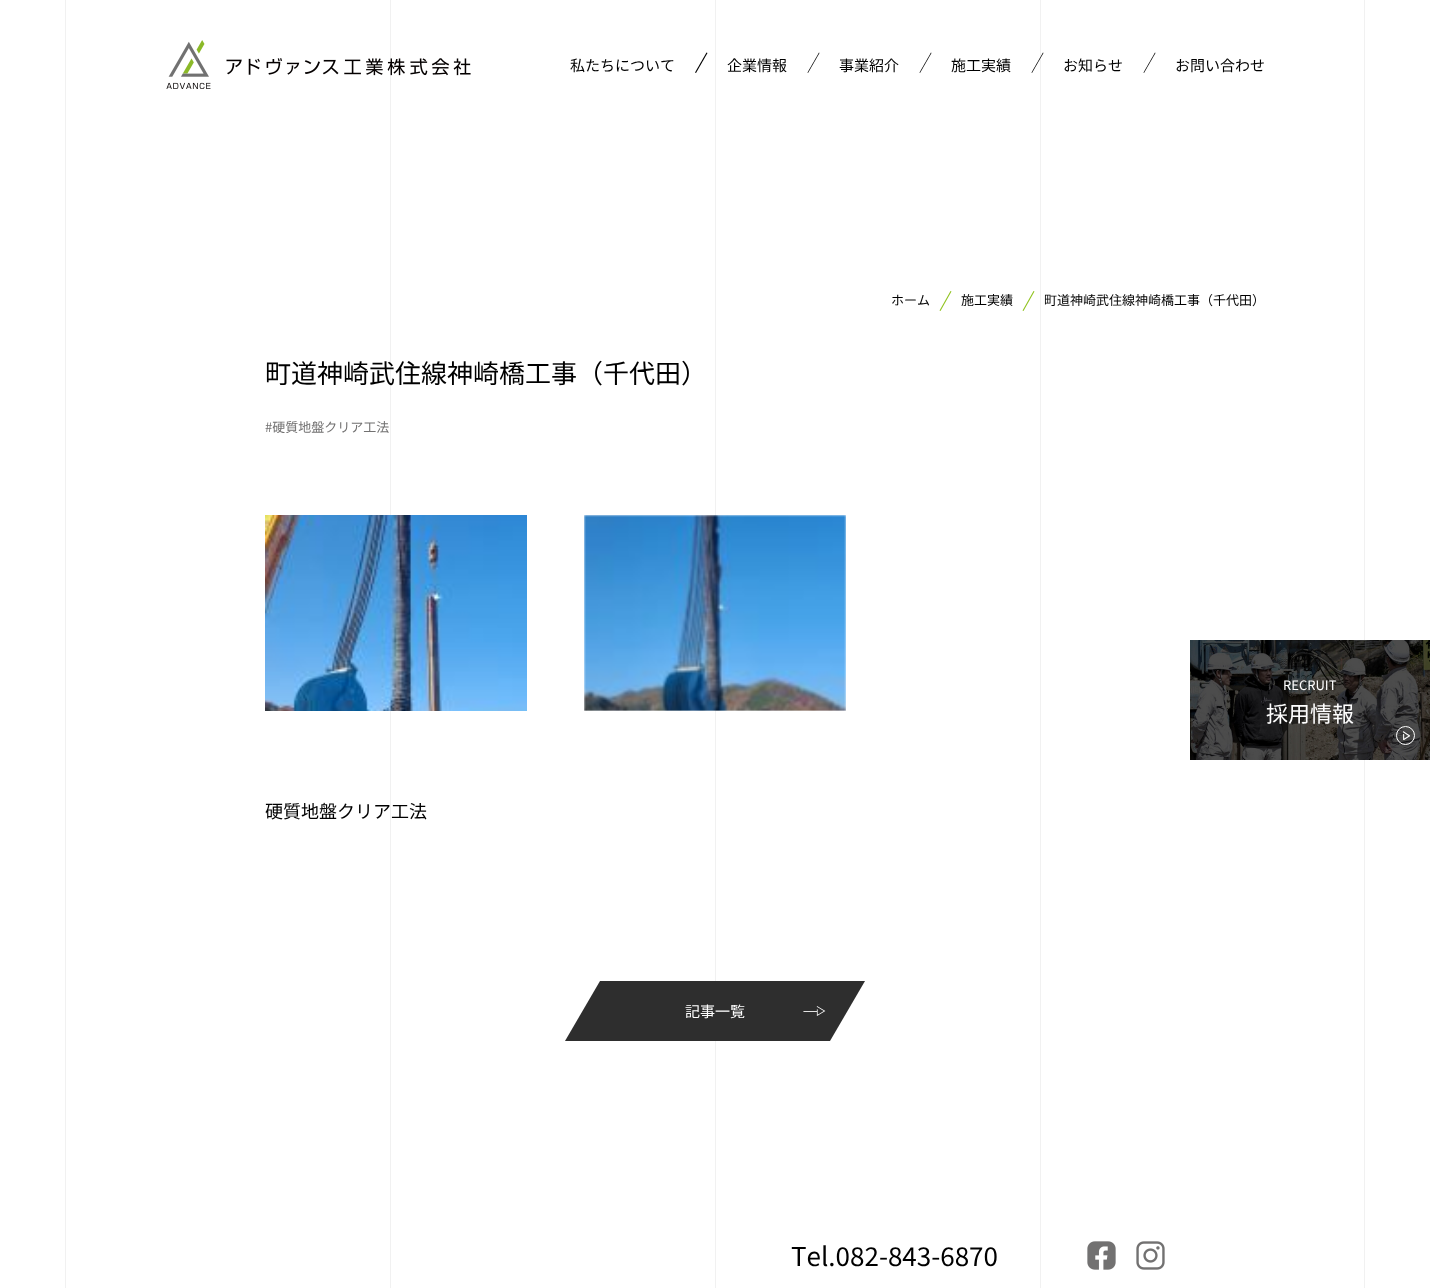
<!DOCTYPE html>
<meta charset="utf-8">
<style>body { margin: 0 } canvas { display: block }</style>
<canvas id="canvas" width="1430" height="1288"></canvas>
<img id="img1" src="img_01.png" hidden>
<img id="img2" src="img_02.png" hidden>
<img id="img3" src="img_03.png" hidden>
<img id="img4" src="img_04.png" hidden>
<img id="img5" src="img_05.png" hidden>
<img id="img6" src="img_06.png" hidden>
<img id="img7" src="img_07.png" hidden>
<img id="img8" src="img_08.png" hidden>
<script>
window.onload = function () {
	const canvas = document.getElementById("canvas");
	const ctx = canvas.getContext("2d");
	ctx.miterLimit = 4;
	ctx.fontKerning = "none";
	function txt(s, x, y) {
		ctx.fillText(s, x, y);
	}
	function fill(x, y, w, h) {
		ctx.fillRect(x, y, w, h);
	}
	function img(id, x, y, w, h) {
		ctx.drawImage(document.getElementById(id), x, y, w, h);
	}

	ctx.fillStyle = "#FFFFFF";
	fill(0, 0, 1430, 1288);
	ctx.fillStyle = "#F1F1F1";
	fill(65, 0, 1, 1288);
	fill(390, 0, 1, 1288);
	fill(715, 0, 1, 1288);
	fill(1040, 0, 1, 1288);
	fill(1364, 0, 1, 1288);
	img("img1", 166, 40, 305, 49);
	ctx.fillStyle = "#000000";
	ctx.beginPath();
	ctx.moveTo(706.5, 52.5);
	ctx.lineTo(707.5, 53);
	ctx.lineTo(696, 73);
	ctx.lineTo(695, 72.5);
	ctx.closePath();
	ctx.fill();
	ctx.beginPath();
	ctx.moveTo(819, 52.5);
	ctx.lineTo(819.5, 53);
	ctx.lineTo(808, 73);
	ctx.lineTo(807.5, 72.5);
	ctx.closePath();
	ctx.fill();
	ctx.beginPath();
	ctx.moveTo(931, 52.5);
	ctx.lineTo(931.5, 53);
	ctx.lineTo(920, 73);
	ctx.lineTo(919.5, 72.5);
	ctx.closePath();
	ctx.fill();
	ctx.beginPath();
	ctx.moveTo(1043, 52.5);
	ctx.lineTo(1043.5, 53);
	ctx.lineTo(1032, 73);
	ctx.lineTo(1031.5, 72.5);
	ctx.closePath();
	ctx.fill();
	ctx.beginPath();
	ctx.moveTo(1155, 52.5);
	ctx.lineTo(1155.5, 53);
	ctx.lineTo(1144, 73);
	ctx.lineTo(1143.5, 72.5);
	ctx.closePath();
	ctx.fill();
	ctx.fillStyle = "#90C31F";
	ctx.beginPath();
	ctx.moveTo(950.5, 291);
	ctx.lineTo(951.5, 291.5);
	ctx.lineTo(940.5, 311);
	ctx.lineTo(939.5, 310.5);
	ctx.closePath();
	ctx.fill();
	ctx.beginPath();
	ctx.moveTo(1033.5, 291);
	ctx.lineTo(1034.5, 291.5);
	ctx.lineTo(1023.5, 311);
	ctx.lineTo(1022.5, 310.5);
	ctx.closePath();
	ctx.fill();
	img("img2", 265, 515, 262, 196);
	img("img3", 584, 515, 262, 196);
	ctx.fillStyle = "#2E2E2E";
	ctx.beginPath();
	ctx.moveTo(865, 981);
	ctx.lineTo(830, 1041);
	ctx.lineTo(565, 1041);
	ctx.lineTo(600, 981);
	ctx.closePath();
	ctx.fill();
	img("img4", 803, 1006, 23, 10);
	img("img5", 1190, 640, 240, 120);
	ctx.beginPath();
	ctx.arc(1405.5, 735.5, 9, 0, Math.PI * 2);
	ctx.strokeStyle = "#FFFFFF";
	ctx.stroke();
	img("img6", 1403, 731, 7, 9);
	img("img7", 1087, 1241, 29, 29);
	img("img8", 1136, 1241, 29, 29);
	ctx.font = "15px Noto Sans JP";
	ctx.fillStyle = "#000000";
	txt("私たちについて", 570, 71);
	txt("企業情報", 727, 71);
	txt("事業紹介", 839, 71);
	txt("施工実績", 951, 71);
	txt("お知らせ", 1063, 71);
	txt("お問い合わせ", 1175, 71);
	ctx.font = "13px Noto Sans JP";
	txt("ホーム", 891, 305);
	txt("施工実績", 961, 305);
	txt("町道神崎武住線神崎橋工事（千代田）", 1044, 305);
	ctx.font = "26px Noto Sans JP";
	txt("町道神崎武住線神崎橋工事（千代田）", 265, 383);
	ctx.font = "13px Noto Sans JP";
	ctx.fillStyle = "#727171";
	txt("#硬質地盤クリア工法", 265, 432);
	ctx.font = "18px Noto Sans JP";
	ctx.fillStyle = "#000000";
	txt("硬質地盤クリア工法", 265, 818);
	ctx.font = "15px Noto Sans JP";
	ctx.fillStyle = "#FFFFFF";
	txt("記事一覧", 685, 1017);
	ctx.font = "13px Noto Sans JP";
	txt("RECRUIT", 1283, 690);
	ctx.font = "22px Noto Sans JP";
	txt("採用情報", 1266, 722);
	ctx.font = "26px Noto Sans JP";
	ctx.fillStyle = "#000000";
	txt("Tel.082-843-6870", 791, 1266);
};
</script>
